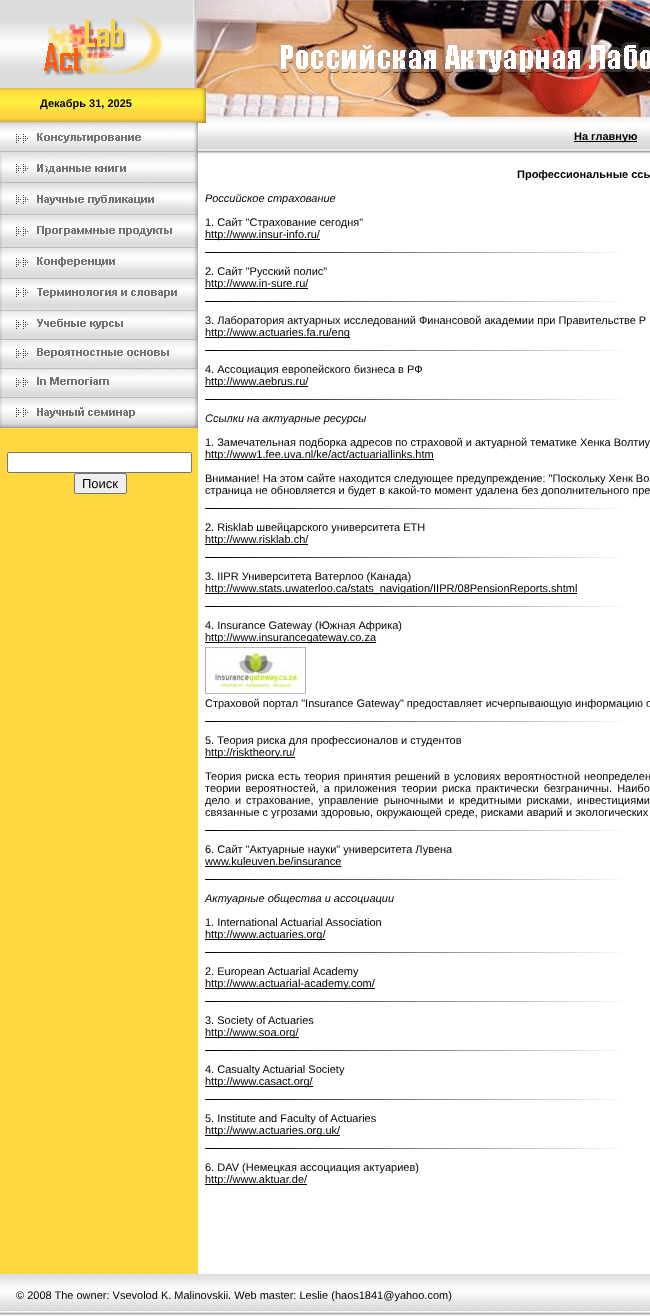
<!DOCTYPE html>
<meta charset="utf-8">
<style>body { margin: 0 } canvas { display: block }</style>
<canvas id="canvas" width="650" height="1316"></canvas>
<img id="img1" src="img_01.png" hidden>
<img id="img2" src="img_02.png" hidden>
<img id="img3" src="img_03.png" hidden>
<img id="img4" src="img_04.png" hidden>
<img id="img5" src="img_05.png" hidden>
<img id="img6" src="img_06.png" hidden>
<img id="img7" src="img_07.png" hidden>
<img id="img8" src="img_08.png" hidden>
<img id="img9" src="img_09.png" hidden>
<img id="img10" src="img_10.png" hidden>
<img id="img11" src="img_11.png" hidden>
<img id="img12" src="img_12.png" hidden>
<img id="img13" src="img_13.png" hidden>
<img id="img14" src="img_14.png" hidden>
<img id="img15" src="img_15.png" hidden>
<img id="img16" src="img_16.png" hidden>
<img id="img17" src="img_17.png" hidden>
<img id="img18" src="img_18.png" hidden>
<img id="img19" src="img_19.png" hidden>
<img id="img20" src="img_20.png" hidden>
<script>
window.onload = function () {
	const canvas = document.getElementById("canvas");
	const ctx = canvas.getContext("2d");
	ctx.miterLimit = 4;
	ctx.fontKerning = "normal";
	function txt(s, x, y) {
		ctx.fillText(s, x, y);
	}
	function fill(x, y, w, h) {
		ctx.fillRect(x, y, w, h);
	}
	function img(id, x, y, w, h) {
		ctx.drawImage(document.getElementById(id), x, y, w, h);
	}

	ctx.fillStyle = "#FFFFFF";
	fill(0, 0, 650, 1316);
	img("img1", 0, 0, 208, 89);
	img("img2", 208, 0, 373, 117);
	img("img3", 581, 0, 69, 117);
	img("img4", 0, 89, 208, 28);
	img("img5", 206, 117, 444, 37);
	img("img6", 0, 117, 206, 37);
	ctx.fillStyle = "#000000";
	fill(574, 141, 63, 1);
	img("img7", 0, 154, 198, 29);
	img("img8", 0, 183, 198, 32);
	img("img9", 0, 215, 198, 33);
	img("img10", 0, 248, 198, 31);
	img("img11", 0, 279, 198, 32);
	img("img12", 0, 311, 198, 29);
	img("img13", 0, 340, 198, 29);
	img("img14", 0, 369, 198, 29);
	img("img15", 0, 398, 198, 30);
	ctx.fillStyle = "#FFD83F";
	fill(0, 428, 198, 846);
	ctx.fillStyle = "#FFFFFF";
	ctx.beginPath();
	ctx.roundRect(7.5, 452.5, 184, 20, 1.5);
	ctx.fill();
	ctx.strokeStyle = "#767676";
	ctx.stroke();
	ctx.fillStyle = "#EFEFEF";
	ctx.beginPath();
	ctx.roundRect(74.5, 473.5, 52, 20, 1.5);
	ctx.fill();
	ctx.stroke();
	ctx.fillStyle = "#000000";
	fill(205, 239, 115, 1);
	img("img16", 205, 252, 418, 1);
	fill(205, 288, 103, 1);
	img("img16", 205, 301, 418, 1);
	fill(205, 337, 145, 1);
	img("img16", 205, 350, 418, 1);
	fill(205, 386, 103, 1);
	img("img16", 205, 399, 418, 1);
	fill(205, 459, 229, 1);
	img("img16", 205, 508, 418, 1);
	fill(205, 544, 103, 1);
	img("img16", 205, 557, 418, 1);
	fill(205, 593, 372, 1);
	img("img16", 205, 606, 418, 1);
	fill(205, 642, 171, 1);
	img("img17", 205, 646, 101, 48);
	img("img16", 205, 721, 418, 1);
	fill(205, 757, 90, 1);
	img("img16", 205, 830, 418, 1);
	fill(205, 866, 136, 1);
	img("img16", 205, 879, 418, 1);
	fill(205, 939, 120, 1);
	img("img16", 205, 952, 418, 1);
	fill(205, 988, 170, 1);
	img("img16", 205, 1001, 418, 1);
	fill(205, 1037, 94, 1);
	img("img16", 205, 1050, 418, 1);
	fill(205, 1086, 108, 1);
	img("img16", 205, 1099, 418, 1);
	fill(205, 1135, 135, 1);
	img("img16", 205, 1148, 418, 1);
	fill(205, 1184, 102, 1);
	img("img18", 0, 1274, 468, 42);
	img("img19", 468, 1274, 158, 42);
	img("img20", 626, 1274, 24, 42);
	ctx.font = "bold 11px Liberation Sans";
	txt("Декабрь 31, 2025", 40, 107);
	txt("На главную", 574, 140);
	ctx.font = "13px Liberation Sans";
	txt("Поиск", 82, 488);
	ctx.font = "bold 11px Liberation Sans";
	txt("Профессиональные ссы", 517, 178);
	ctx.font = "italic 11px Liberation Sans";
	txt("Российское страхование", 205, 202);
	ctx.font = "11px Liberation Sans";
	txt("1. Сайт \"Страхование сегодня\"", 205, 226);
	txt("http://www.insur-info.ru/", 205, 238);
	txt("2. Сайт \"Русский полис\"", 205, 275);
	txt("http://www.in-sure.ru/", 205, 287);
	txt("3. Лаборатория актуарных исследований Финансовой академии при Правительстве Р", 205, 324);
	txt("http://www.actuaries.fa.ru/eng", 205, 336);
	txt("4. Ассоциация европейского бизнеса в РФ", 205, 373);
	txt("http://www.aebrus.ru/", 205, 385);
	ctx.font = "italic 11px Liberation Sans";
	txt("Ссылки на актуарные ресурсы", 205, 422);
	ctx.font = "11px Liberation Sans";
	txt("1. Замечательная подборка адресов по страховой и актуарной тематике Хенка Волтиу", 205, 446);
	txt("http://www1.fee.uva.nl/ke/act/actuariallinks.htm", 205, 458);
	txt("Внимание! На этом сайте находится следующее предупреждение: \"Поскольку Хенк Во", 205, 482);
	txt("страница не обновляется и будет в какой-то момент удалена без дополнительного пре", 205, 494);
	txt("2. Risklab швейцарского университета ETH", 205, 531);
	txt("http://www.risklab.ch/", 205, 543);
	txt("3. IIPR Университета Ватерлоо (Канада)", 205, 580);
	txt("http://www.stats.uwaterloo.ca/stats_navigation/IIPR/08PensionReports.shtml", 205, 592);
	txt("4. Insurance Gateway (Южная Африка)", 205, 629);
	txt("http://www.insurancegateway.co.za", 205, 641);
	txt("Страховой портал \"Insurance Gateway\" предоставляет исчерпывающую информацию о", 205, 707);
	txt("5. Теория риска для профессионалов и студентов", 205, 744);
	txt("http://risktheory.ru/", 205, 756);
	ctx.wordSpacing = "0.75px";
	txt("Теория риска есть теория принятия решений в условиях", 205, 780);
	txt("вероятностной неопределен", 504, 780);
	ctx.wordSpacing = "2px";
	txt("теории вероятностей, а", 205, 792);
	txt("приложения теории риска практически безграничны. Наибо", 334, 792);
	txt("дело и", 205, 804);
	txt("страхование, управление рыночными и кредитными рисками,", 246, 804);
	txt("инвестициями", 577, 804);
	ctx.wordSpacing = "0px";
	txt("связанные с угрозами здоровью, окружающей среде, рисками аварий и экологических", 205, 816);
	txt("6. Сайт \"Актуарные науки\" университета Лувена", 205, 853);
	txt("www.kuleuven.be/insurance", 205, 865);
	ctx.font = "italic 11px Liberation Sans";
	txt("Актуарные общества и ассоциации", 205, 902);
	ctx.font = "11px Liberation Sans";
	txt("1. International Actuarial Association", 205, 926);
	txt("http://www.actuaries.org/", 205, 938);
	txt("2. European Actuarial Academy", 205, 975);
	txt("http://www.actuarial-academy.com/", 205, 987);
	txt("3. Society of Actuaries", 205, 1024);
	txt("http://www.soa.org/", 205, 1036);
	txt("4. Casualty Actuarial Society", 205, 1073);
	txt("http://www.casact.org/", 205, 1085);
	txt("5. Institute and Faculty of Actuaries", 205, 1122);
	txt("http://www.actuaries.org.uk/", 205, 1134);
	txt("6. DAV (Немецкая ассоциация актуариев)", 205, 1171);
	txt("http://www.aktuar.de/", 205, 1183);
	txt("© 2008 The owner: Vsevolod K. Malinovskii. Web master: Leslie (haos1841@yahoo.com)", 16, 1299);
};
</script>
